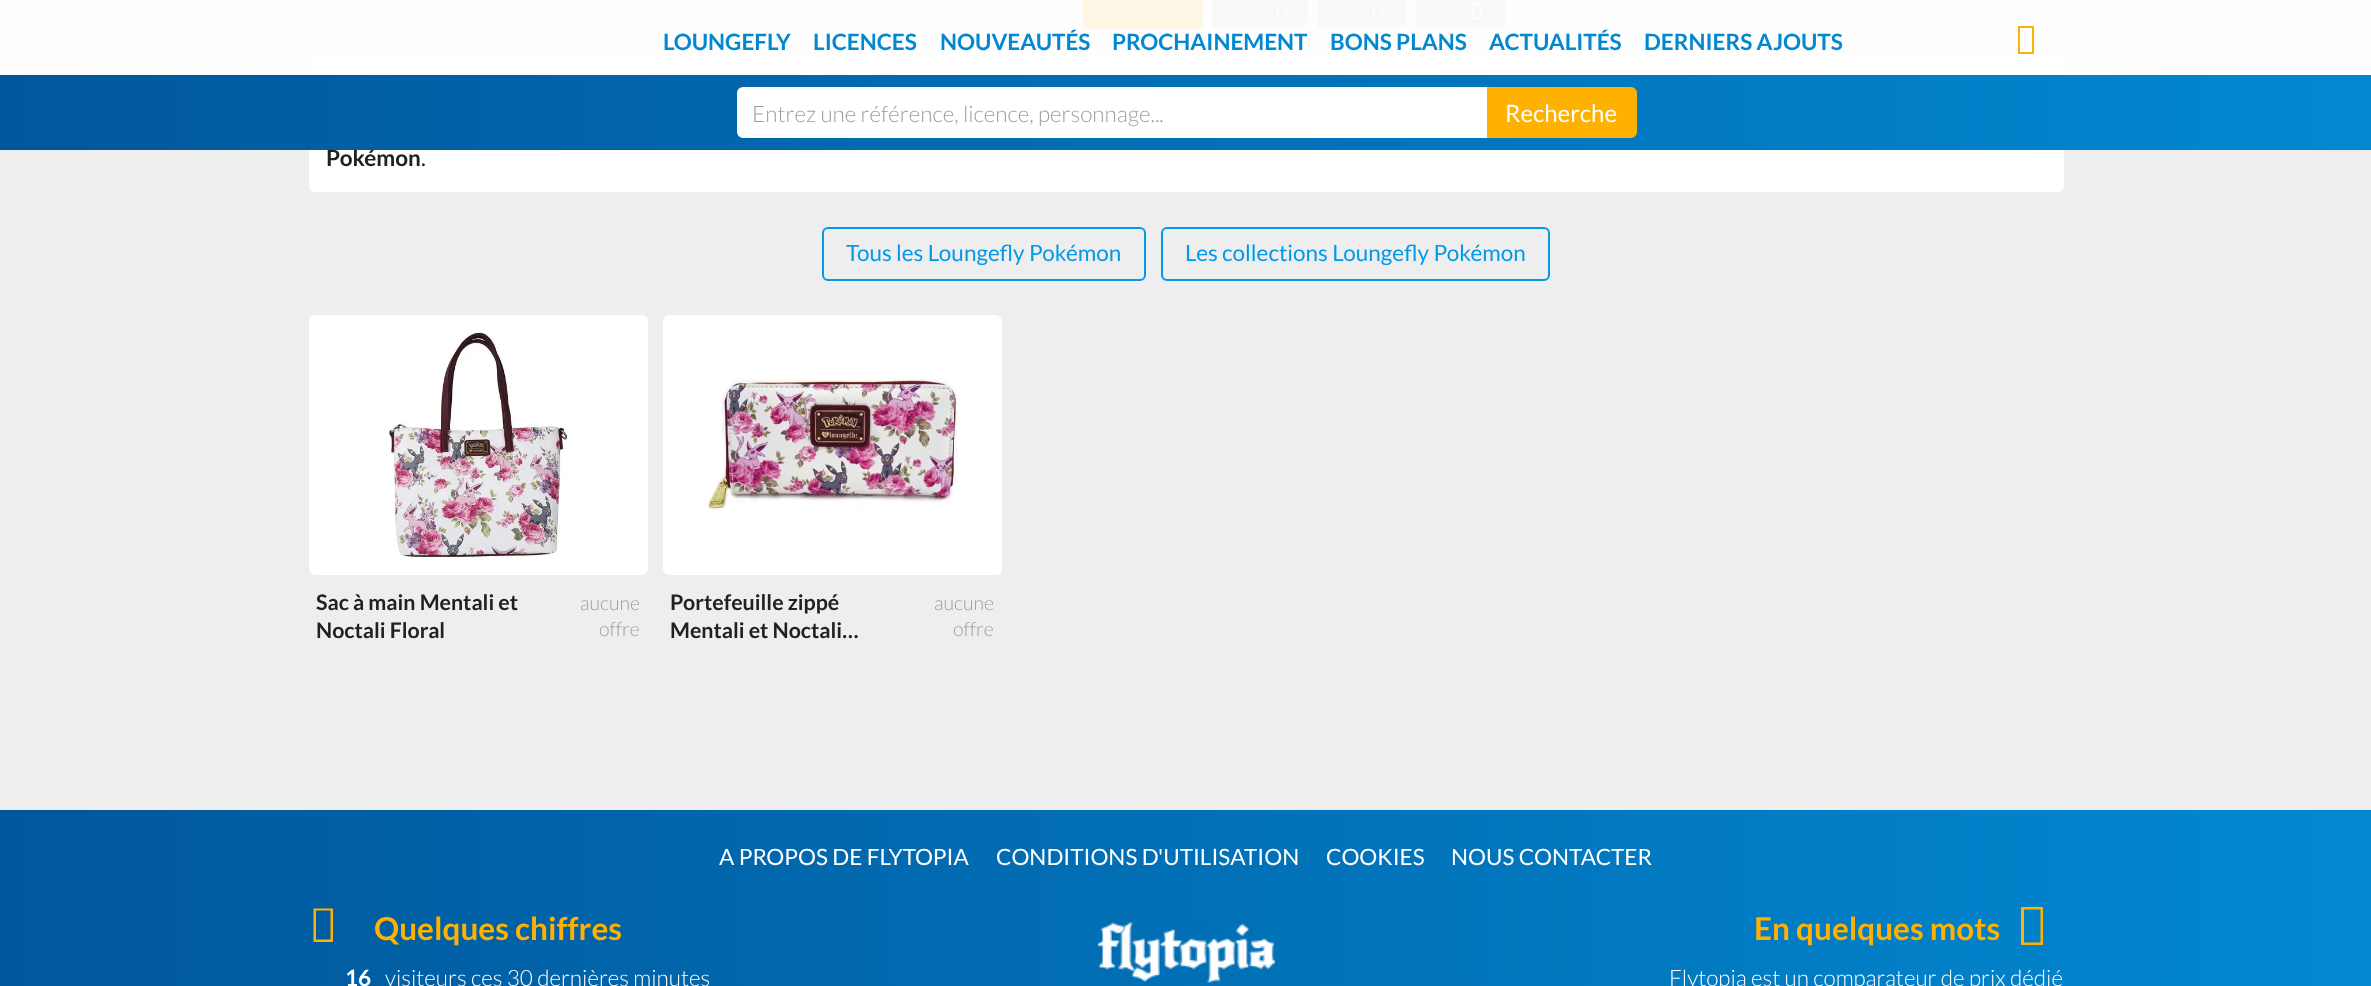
<!DOCTYPE html>
<meta charset="utf-8">
<style>body { margin: 0 } canvas { display: block }</style>
<canvas id="canvas" width="2371" height="986"></canvas>
<img id="img1" src="img_01.png" hidden>
<img id="img2" src="img_02.png" hidden>
<img id="img3" src="img_03.png" hidden>
<img id="img4" src="img_04.png" hidden>
<script>
window.onload = function () {
	const canvas = document.getElementById("canvas");
	const ctx = canvas.getContext("2d");
	ctx.miterLimit = 4;
	ctx.fontKerning = "normal";
	function txt(s, x, y) {
		ctx.fillText(s, x, y);
	}
	function fill(x, y, w, h) {
		ctx.fillRect(x, y, w, h);
	}
	function round(x, y, w, h, r) {
		ctx.beginPath();
		ctx.roundRect(x, y, w, h, r);
		ctx.fill();
	}
	function img(id, x, y, w, h) {
		ctx.drawImage(document.getElementById(id), x, y, w, h);
	}
	let gradient;

	ctx.fillStyle = "#EEEEEE";
	fill(0, 0, 2371, 986);
	ctx.fillStyle = "#FFB100";
	round(1082, -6, 121, 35, 6);
	ctx.fillStyle = "#BDBDBD";
	ctx.beginPath();
	ctx.moveTo(1218, -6);
	ctx.lineTo(1275, -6);
	ctx.lineTo(1275, 29);
	ctx.lineTo(1218, 29);
	ctx.bezierCurveTo(1214.5, 29, 1212, 26.5, 1212, 23);
	ctx.lineTo(1212, 0);
	ctx.bezierCurveTo(1212, -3.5, 1214.5, -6, 1218, -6);
	ctx.closePath();
	ctx.fill();
	ctx.beginPath();
	ctx.moveTo(1275, -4);
	ctx.lineTo(1302, -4);
	ctx.bezierCurveTo(1305.5, -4, 1308, -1.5, 1308, 2);
	ctx.lineTo(1308, 21);
	ctx.bezierCurveTo(1308, 24.5, 1305.5, 27, 1302, 27);
	ctx.lineTo(1275, 27);
	ctx.closePath();
	ctx.fill();
	img("img1", 1277, 3, 10, 17);
	ctx.beginPath();
	ctx.moveTo(1323, -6);
	ctx.lineTo(1371, -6);
	ctx.lineTo(1371, 29);
	ctx.lineTo(1323, 29);
	ctx.bezierCurveTo(1319.5, 29, 1317, 26.5, 1317, 23);
	ctx.lineTo(1317, 0);
	ctx.bezierCurveTo(1317, -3.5, 1319.5, -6, 1323, -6);
	ctx.closePath();
	ctx.fill();
	ctx.beginPath();
	ctx.moveTo(1371, -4);
	ctx.lineTo(1401, -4);
	ctx.bezierCurveTo(1404.5, -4, 1407, -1.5, 1407, 2);
	ctx.lineTo(1407, 21);
	ctx.bezierCurveTo(1407, 24.5, 1404.5, 27, 1401, 27);
	ctx.lineTo(1371, 27);
	ctx.closePath();
	ctx.fill();
	img("img1", 1373, 3, 10, 17);
	ctx.beginPath();
	ctx.moveTo(1422, -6);
	ctx.lineTo(1470, -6);
	ctx.lineTo(1470, 29);
	ctx.lineTo(1422, 29);
	ctx.bezierCurveTo(1418.5, 29, 1416, 26.5, 1416, 23);
	ctx.lineTo(1416, 0);
	ctx.bezierCurveTo(1416, -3.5, 1418.5, -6, 1422, -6);
	ctx.closePath();
	ctx.fill();
	ctx.beginPath();
	ctx.moveTo(1470, -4);
	ctx.lineTo(1500, -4);
	ctx.bezierCurveTo(1503.5, -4, 1506, -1.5, 1506, 2);
	ctx.lineTo(1506, 21);
	ctx.bezierCurveTo(1506, 24.5, 1503.5, 27, 1500, 27);
	ctx.lineTo(1470, 27);
	ctx.closePath();
	ctx.fill();
	img("img1", 1472, 3, 10, 17);
	ctx.fillStyle = "#FFFFFF";
	round(309, 56, 1755, 136, 6);
	ctx.fillStyle = "rgba(255, 255, 255, 0.9)";
	fill(0, 0, 2371, 75);
	ctx.fillStyle = "#FFB100";
	ctx.beginPath();
	ctx.moveTo(2018, 54);
	ctx.lineTo(2018, 26);
	ctx.lineTo(2034, 26);
	ctx.lineTo(2034, 54);
	ctx.closePath();
	ctx.moveTo(2020, 52);
	ctx.lineTo(2032, 52);
	ctx.lineTo(2032, 28);
	ctx.lineTo(2020, 28);
	ctx.closePath();
	ctx.fill();
	ctx.beginPath();
	ctx.roundRect(823, 228, 322, 52, 5);
	ctx.strokeStyle = "#0299EB";
	ctx.lineWidth = 2;
	ctx.stroke();
	ctx.beginPath();
	ctx.roundRect(1162, 228, 387, 52, 5);
	ctx.stroke();
	ctx.fillStyle = "#FFFFFF";
	round(309, 315, 339, 260, 6);
	img("img2", 388, 332, 182, 227);
	round(663, 315, 339, 260, 6);
	img("img3", 708, 378, 249, 132);
	gradient = ctx.createLinearGradient(0, 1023, 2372, 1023);
	gradient.addColorStop(0, "#01579B");
	gradient.addColorStop(1, "#0288D1");
	ctx.fillStyle = gradient;
	fill(0, 810, 2371, 176);
	ctx.fillStyle = "#FFB100";
	ctx.beginPath();
	ctx.moveTo(313.5, 942);
	ctx.lineTo(313.5, 908.5);
	ctx.lineTo(333, 908.5);
	ctx.lineTo(333, 942);
	ctx.closePath();
	ctx.moveTo(316, 939.5);
	ctx.lineTo(330.5, 939.5);
	ctx.lineTo(330.5, 910.5);
	ctx.lineTo(316, 910.5);
	ctx.closePath();
	ctx.fill();
	img("img4", 1098, 922, 177, 61);
	ctx.beginPath();
	ctx.moveTo(2021, 945);
	ctx.lineTo(2021, 907);
	ctx.lineTo(2043, 907);
	ctx.lineTo(2043, 945);
	ctx.closePath();
	ctx.moveTo(2024, 942.5);
	ctx.lineTo(2040.5, 942.5);
	ctx.lineTo(2040.5, 909.5);
	ctx.lineTo(2024, 909.5);
	ctx.closePath();
	ctx.fill();
	ctx.font = "bold 22.5px Lato";
	ctx.fillStyle = "#0288D1";
	txt("LOUNGEFLY", 663, 50);
	txt("LICENCES", 813, 50);
	txt("NOUVEAUTÉS", 940, 50);
	txt("PROCHAINEMENT", 1112, 50);
	txt("BONS PLANS", 1330, 50);
	txt("ACTUALITÉS", 1489, 50);
	txt("DERNIERS AJOUTS", 1644, 50);
	ctx.fillStyle = "#212121";
	txt("Pokémon", 326, 166);
	gradient = ctx.createLinearGradient(0, 113, 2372, 112);
	gradient.addColorStop(0, "#01579B");
	gradient.addColorStop(1, "#0288D1");
	ctx.fillStyle = gradient;
	fill(0, 75, 2371, 75);
	ctx.fillStyle = "#FFB100";
	ctx.beginPath();
	ctx.roundRect(1488, 88, 148, 49, [0, 5, 5, 0]);
	ctx.fill();
	ctx.strokeStyle = "#FFB100";
	ctx.stroke();
	ctx.font = "24px Lato";
	ctx.fillStyle = "#FFFFFF";
	txt("Recherche", 1505, 122);
	ctx.beginPath();
	ctx.roundRect(738, 88, 748, 49, [5, 0, 0, 5]);
	ctx.fill();
	ctx.strokeStyle = "#FFFFFF";
	ctx.stroke();
	ctx.font = "300 22.5px Lato";
	ctx.fillStyle = "#9E9E9E";
	txt("Entrez une référence, licence, personnage...", 752, 122);
	ctx.font = "22.5px Lato";
	ctx.fillStyle = "#212121";
	txt(".", 421, 166);
	ctx.fillStyle = "#0299EB";
	txt("Tous les Loungefly Pokémon", 846, 261);
	txt("Les collections Loungefly Pokémon", 1185, 261);
	ctx.font = "bold 21.4px Lato";
	ctx.fillStyle = "#212121";
	txt("Sac à main Mentali et", 316, 610);
	txt("Noctali Floral", 316, 638);
	ctx.font = "300 19.5px Lato";
	ctx.fillStyle = "#9E9E9E";
	txt("aucune", 580, 610);
	txt("offre", 599, 636);
	ctx.font = "bold 21.4px Lato";
	ctx.fillStyle = "#212121";
	txt("Portefeuille zippé", 670, 610);
	txt("Mentali et Noctali…", 670, 638);
	ctx.font = "300 19.5px Lato";
	ctx.fillStyle = "#9E9E9E";
	txt("aucune", 934, 610);
	txt("offre", 953, 636);
	ctx.font = "22.5px Lato";
	ctx.fillStyle = "#FFFFFF";
	txt("A PROPOS DE FLYTOPIA", 719, 865);
	txt("CONDITIONS D'UTILISATION", 996, 865);
	txt("COOKIES", 1326, 865);
	txt("NOUS CONTACTER", 1451, 865);
	ctx.font = "bold 31.5px Lato";
	ctx.fillStyle = "#FFB100";
	txt("Quelques chiffres", 374, 940);
	ctx.font = "bold 22.5px Lato";
	ctx.fillStyle = "#FFFFFF";
	txt("16", 345, 986);
	ctx.font = "300 22.5px Lato";
	txt("visiteurs ces 30 dernières minutes", 385, 986);
	ctx.font = "bold 31.5px Lato";
	ctx.fillStyle = "#FFB100";
	txt("En quelques mots", 1754, 940);
	ctx.font = "300 22.5px Lato";
	ctx.fillStyle = "#FFFFFF";
	txt("Flytopia est un comparateur de prix dédié", 1669, 986);
};
</script>
